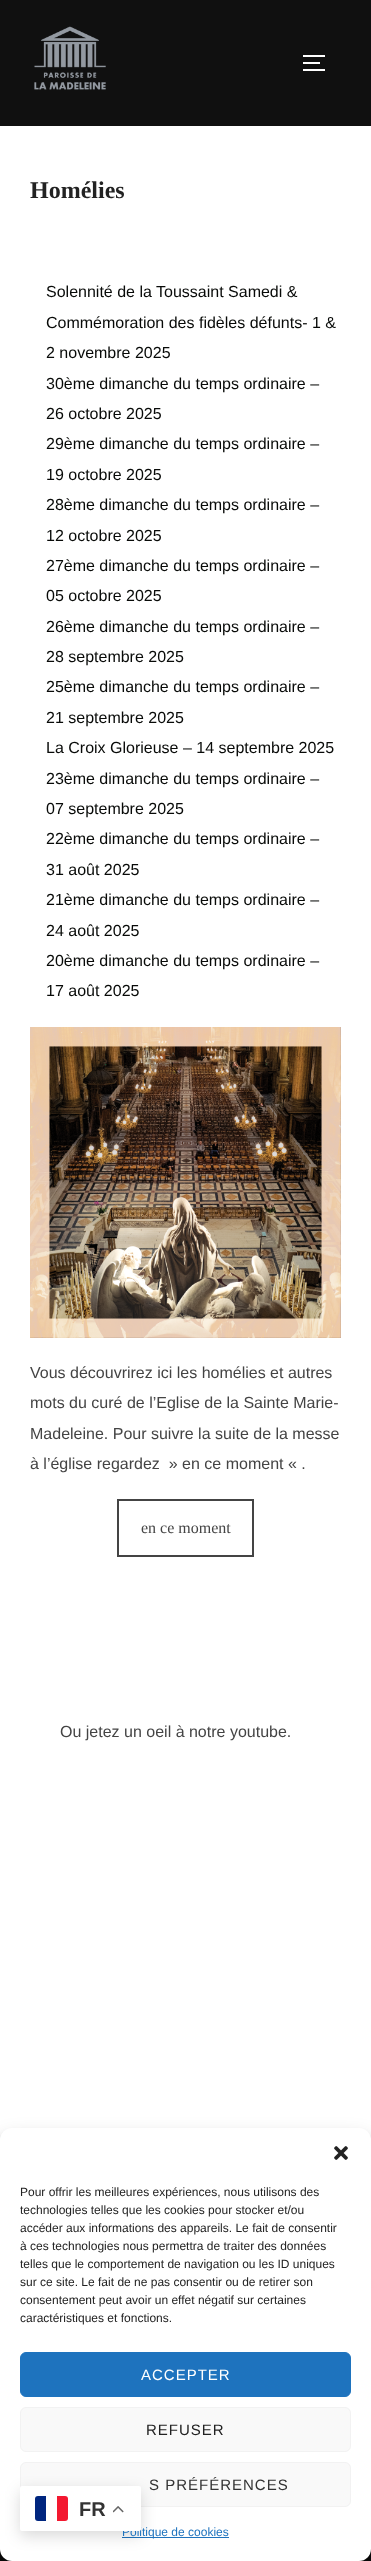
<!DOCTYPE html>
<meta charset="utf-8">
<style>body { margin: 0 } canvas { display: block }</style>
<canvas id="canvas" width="371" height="2561"></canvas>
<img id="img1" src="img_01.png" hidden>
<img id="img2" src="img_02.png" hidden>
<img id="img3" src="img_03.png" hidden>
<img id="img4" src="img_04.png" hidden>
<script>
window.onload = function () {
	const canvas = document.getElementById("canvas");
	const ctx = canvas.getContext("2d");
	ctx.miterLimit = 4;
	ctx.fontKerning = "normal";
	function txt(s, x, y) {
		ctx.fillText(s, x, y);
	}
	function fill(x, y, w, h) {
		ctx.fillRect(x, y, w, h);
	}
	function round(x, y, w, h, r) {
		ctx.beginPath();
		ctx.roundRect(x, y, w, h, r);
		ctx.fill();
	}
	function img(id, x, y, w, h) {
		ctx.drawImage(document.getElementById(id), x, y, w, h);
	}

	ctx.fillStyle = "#FFFFFF";
	fill(0, 0, 371, 2561);
	ctx.fillStyle = "#101010";
	fill(0, 0, 371, 126);
	img("img1", 34, 26, 72, 64);
	ctx.fillStyle = "#FFFFFF";
	fill(303, 55, 22, 2);
	fill(303, 62, 17, 2);
	fill(303, 69, 22, 2);
	img("img2", 30, 1027, 311, 311);
	ctx.strokeStyle = "#444444";
	ctx.lineWidth = 2;
	ctx.strokeRect(118, 1500, 135, 56);
	ctx.fillStyle = "#0A0A0A";
	fill(0, 2549, 371, 12);
	ctx.fillStyle = "rgba(0, 0, 0, 0.23)";
	ctx.filter = "blur(3px)";
	ctx.beginPath();
	ctx.roundRect(0, 2134, 371, 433, 12);
	ctx.fill();
	ctx.filter = "none";
	ctx.fillStyle = "rgba(0, 0, 0, 0.19)";
	ctx.filter = "blur(10px)";
	ctx.beginPath();
	ctx.roundRect(0, 2138, 371, 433, 12);
	ctx.fill();
	ctx.filter = "none";
	ctx.fillStyle = "#FFFFFF";
	round(0, 2128, 371, 433, 12);
	img("img3", 334, 2146, 14, 14);
	ctx.fillStyle = "#1E73BE";
	ctx.beginPath();
	ctx.roundRect(20.5, 2352.5, 330, 44, 5.5);
	ctx.fill();
	ctx.strokeStyle = "#1E73BE";
	ctx.lineWidth = 1;
	ctx.stroke();
	ctx.fillStyle = "#F9F9F9";
	ctx.beginPath();
	ctx.roundRect(20.5, 2407.5, 330, 44, 5.5);
	ctx.fill();
	ctx.strokeStyle = "#F2F2F2";
	ctx.stroke();
	ctx.beginPath();
	ctx.roundRect(20.5, 2462.5, 330, 44, 5.5);
	ctx.fill();
	ctx.stroke();
	ctx.fillStyle = "#1E73BE";
	fill(122, 2537, 107, 1);
	ctx.fillStyle = "rgba(0, 0, 0, 0.15)";
	ctx.filter = "blur(7.5px)";
	ctx.beginPath();
	ctx.roundRect(20, 2491, 121, 45, 2);
	ctx.fill();
	ctx.filter = "none";
	ctx.font = "bold 24px Liberation Serif";
	ctx.fillStyle = "#222222";
	txt("Homélies", 30, 198);
	ctx.font = "16px Liberation Sans";
	ctx.fillStyle = "#080A08";
	txt("Solennité de la Toussaint Samedi &", 46, 297);
	txt("Commémoration des fidèles défunts- 1 &", 46, 328);
	txt("2 novembre 2025", 46, 358);
	txt("30ème dimanche du temps ordinaire –", 46, 389);
	txt("26 octobre 2025", 46, 419);
	txt("29ème dimanche du temps ordinaire –", 46, 449);
	txt("19 octobre 2025", 46, 480);
	txt("28ème dimanche du temps ordinaire –", 46, 510);
	txt("12 octobre 2025", 46, 541);
	txt("27ème dimanche du temps ordinaire –", 46, 571);
	txt("05 octobre 2025", 46, 601);
	txt("26ème dimanche du temps ordinaire –", 46, 632);
	txt("28 septembre 2025", 46, 662);
	txt("25ème dimanche du temps ordinaire –", 46, 692);
	txt("21 septembre 2025", 46, 723);
	txt("La Croix Glorieuse – 14 septembre 2025", 46, 753);
	txt("23ème dimanche du temps ordinaire –", 46, 784);
	txt("07 septembre 2025", 46, 814);
	txt("22ème dimanche du temps ordinaire –", 46, 844);
	txt("31 août 2025", 46, 875);
	txt("21ème dimanche du temps ordinaire –", 46, 905);
	txt("24 août 2025", 46, 936);
	txt("20ème dimanche du temps ordinaire –", 46, 966);
	txt("17 août 2025", 46, 996);
	ctx.fillStyle = "#444444";
	txt("Vous découvrirez ici les homélies et autres", 30, 1378);
	txt("mots du curé de l’Eglise de la Sainte Marie-", 30, 1408);
	txt("Madeleine. Pour suivre la suite de la messe", 30, 1439);
	txt("à l’église regardez  » en ce moment « .", 30, 1469);
	ctx.font = "16px Liberation Serif";
	txt("en ce moment", 141, 1533);
	ctx.font = "16px Liberation Sans";
	txt("Ou jetez un oeil à notre youtube.", 60, 1737);
	ctx.font = "12px Liberation Sans";
	ctx.fillStyle = "#222222";
	txt("Pour offrir les meilleures expériences, nous utilisons des", 20, 2196);
	txt("technologies telles que les cookies pour stocker et/ou", 20, 2214);
	txt("accéder aux informations des appareils. Le fait de consentir", 20, 2232);
	txt("à ces technologies nous permettra de traiter des données", 20, 2250);
	txt("telles que le comportement de navigation ou les ID uniques", 20, 2268);
	txt("sur ce site. Le fait de ne pas consentir ou de retirer son", 20, 2286);
	txt("consentement peut avoir un effet négatif sur certaines", 20, 2304);
	txt("caractéristiques et fonctions.", 20, 2322);
	ctx.letterSpacing = "1px";
	ctx.font = "15px Liberation Sans";
	ctx.fillStyle = "#FFFFFF";
	txt("ACCEPTER", 141, 2380);
	ctx.fillStyle = "#222222";
	txt("REFUSER", 146, 2435);
	ctx.fillStyle = "#333333";
	txt("S PRÉFÉRENCES", 149, 2490);
	ctx.letterSpacing = "0px";
	ctx.font = "12px Liberation Sans";
	ctx.fillStyle = "#1E73BE";
	txt("Politique de cookies", 122, 2536);
	ctx.fillStyle = "#FFFFFF";
	round(20, 2486, 121, 45, 2);
	ctx.fillStyle = "#00267F";
	ctx.beginPath();
	ctx.roundRect(35, 2496, 11, 25, [3, 0, 0, 3]);
	ctx.fill();
	ctx.fillStyle = "#F31830";
	ctx.beginPath();
	ctx.roundRect(57, 2496, 11, 25, [0, 3, 3, 0]);
	ctx.fill();
	ctx.font = "bold 20px Liberation Sans";
	ctx.fillStyle = "#333333";
	txt("FR", 79, 2516);
	img("img4", 113, 2506, 11, 7);
};
</script>
